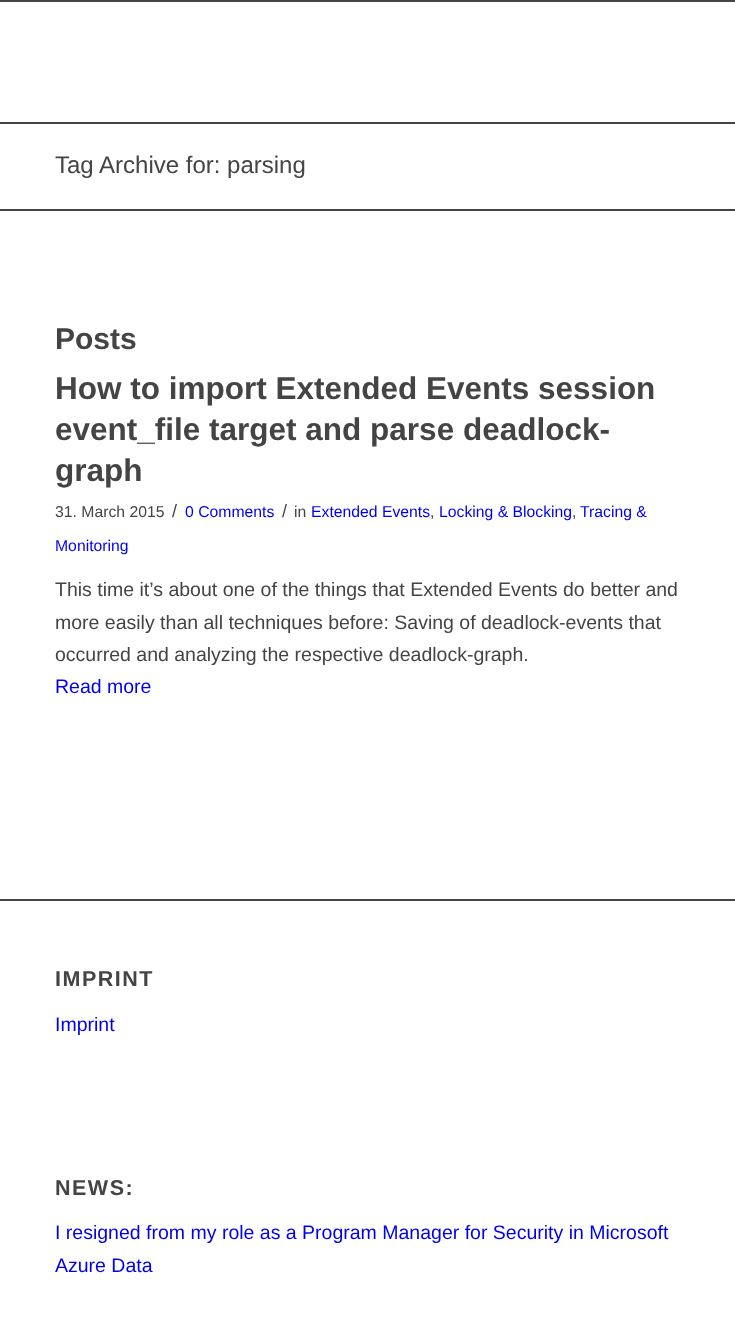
<!DOCTYPE html>
<meta charset="utf-8">
<style>body { margin: 0 } canvas { display: block }</style>
<canvas id="canvas" width="735" height="1322"></canvas>
<script>
window.onload = function () {
	const canvas = document.getElementById("canvas");
	const ctx = canvas.getContext("2d");
	ctx.miterLimit = 4;
	ctx.fontKerning = "normal";
	function txt(s, x, y) {
		ctx.fillText(s, x, y);
	}
	function fill(x, y, w, h) {
		ctx.fillRect(x, y, w, h);
	}

	ctx.fillStyle = "#FFFFFF";
	fill(0, 0, 735, 1322);
	ctx.fillStyle = "#444444";
	fill(0, 0, 735, 2);
	fill(0, 122, 735, 2);
	fill(0, 209, 735, 2);
	fill(0, 899, 735, 2);
	ctx.font = "24px Liberation Sans";
	txt("Tag Archive for: parsing", 55, 173);
	ctx.font = "bold 30px Liberation Sans";
	txt("Posts", 55, 349);
	ctx.font = "bold 31.5px Liberation Sans";
	txt("How to import Extended Events session", 55, 399);
	txt("event_file target and parse deadlock-", 55, 440);
	txt("graph", 55, 481);
	ctx.font = "15.75px Liberation Sans";
	txt("31. March 2015", 55, 517);
	ctx.font = "18px Liberation Sans";
	txt("/", 172, 517);
	ctx.font = "15.75px Liberation Sans";
	ctx.fillStyle = "#0000EE";
	txt("0 Comments", 185, 517);
	ctx.font = "18px Liberation Sans";
	ctx.fillStyle = "#444444";
	txt("/", 282, 517);
	ctx.font = "15.75px Liberation Sans";
	txt("in", 294, 517);
	ctx.fillStyle = "#0000EE";
	txt("Extended Events", 311, 517);
	ctx.fillStyle = "#444444";
	txt(",", 430, 517);
	ctx.fillStyle = "#0000EE";
	txt("Locking & Blocking", 439, 517);
	ctx.fillStyle = "#444444";
	txt(",", 572, 517);
	ctx.fillStyle = "#0000EE";
	txt("Tracing &", 580, 517);
	txt("Monitoring", 55, 551);
	ctx.font = "19.5px Liberation Sans";
	ctx.fillStyle = "#444444";
	txt("This time it’s about one of the things that Extended Events do better and", 55, 596);
	txt("more easily than all techniques before: Saving of deadlock-events that", 55, 629);
	txt("occurred and analyzing the respective deadlock-graph.", 55, 661);
	ctx.fillStyle = "#0000EE";
	txt("Read more", 55, 693);
	ctx.letterSpacing = "1.5px";
	ctx.font = "bold 21.5px Liberation Sans";
	ctx.fillStyle = "#444444";
	txt("IMPRINT", 55, 986);
	ctx.letterSpacing = "0px";
	ctx.font = "19.5px Liberation Sans";
	ctx.fillStyle = "#0000EE";
	txt("Imprint", 55, 1031);
	ctx.letterSpacing = "1.5px";
	ctx.font = "bold 21.5px Liberation Sans";
	ctx.fillStyle = "#444444";
	txt("NEWS:", 55, 1195);
	ctx.letterSpacing = "0px";
	ctx.font = "19.5px Liberation Sans";
	ctx.fillStyle = "#0000EE";
	txt("I resigned from my role as a Program Manager for Security in Microsoft", 55, 1239);
	txt("Azure Data", 55, 1272);
};
</script>
